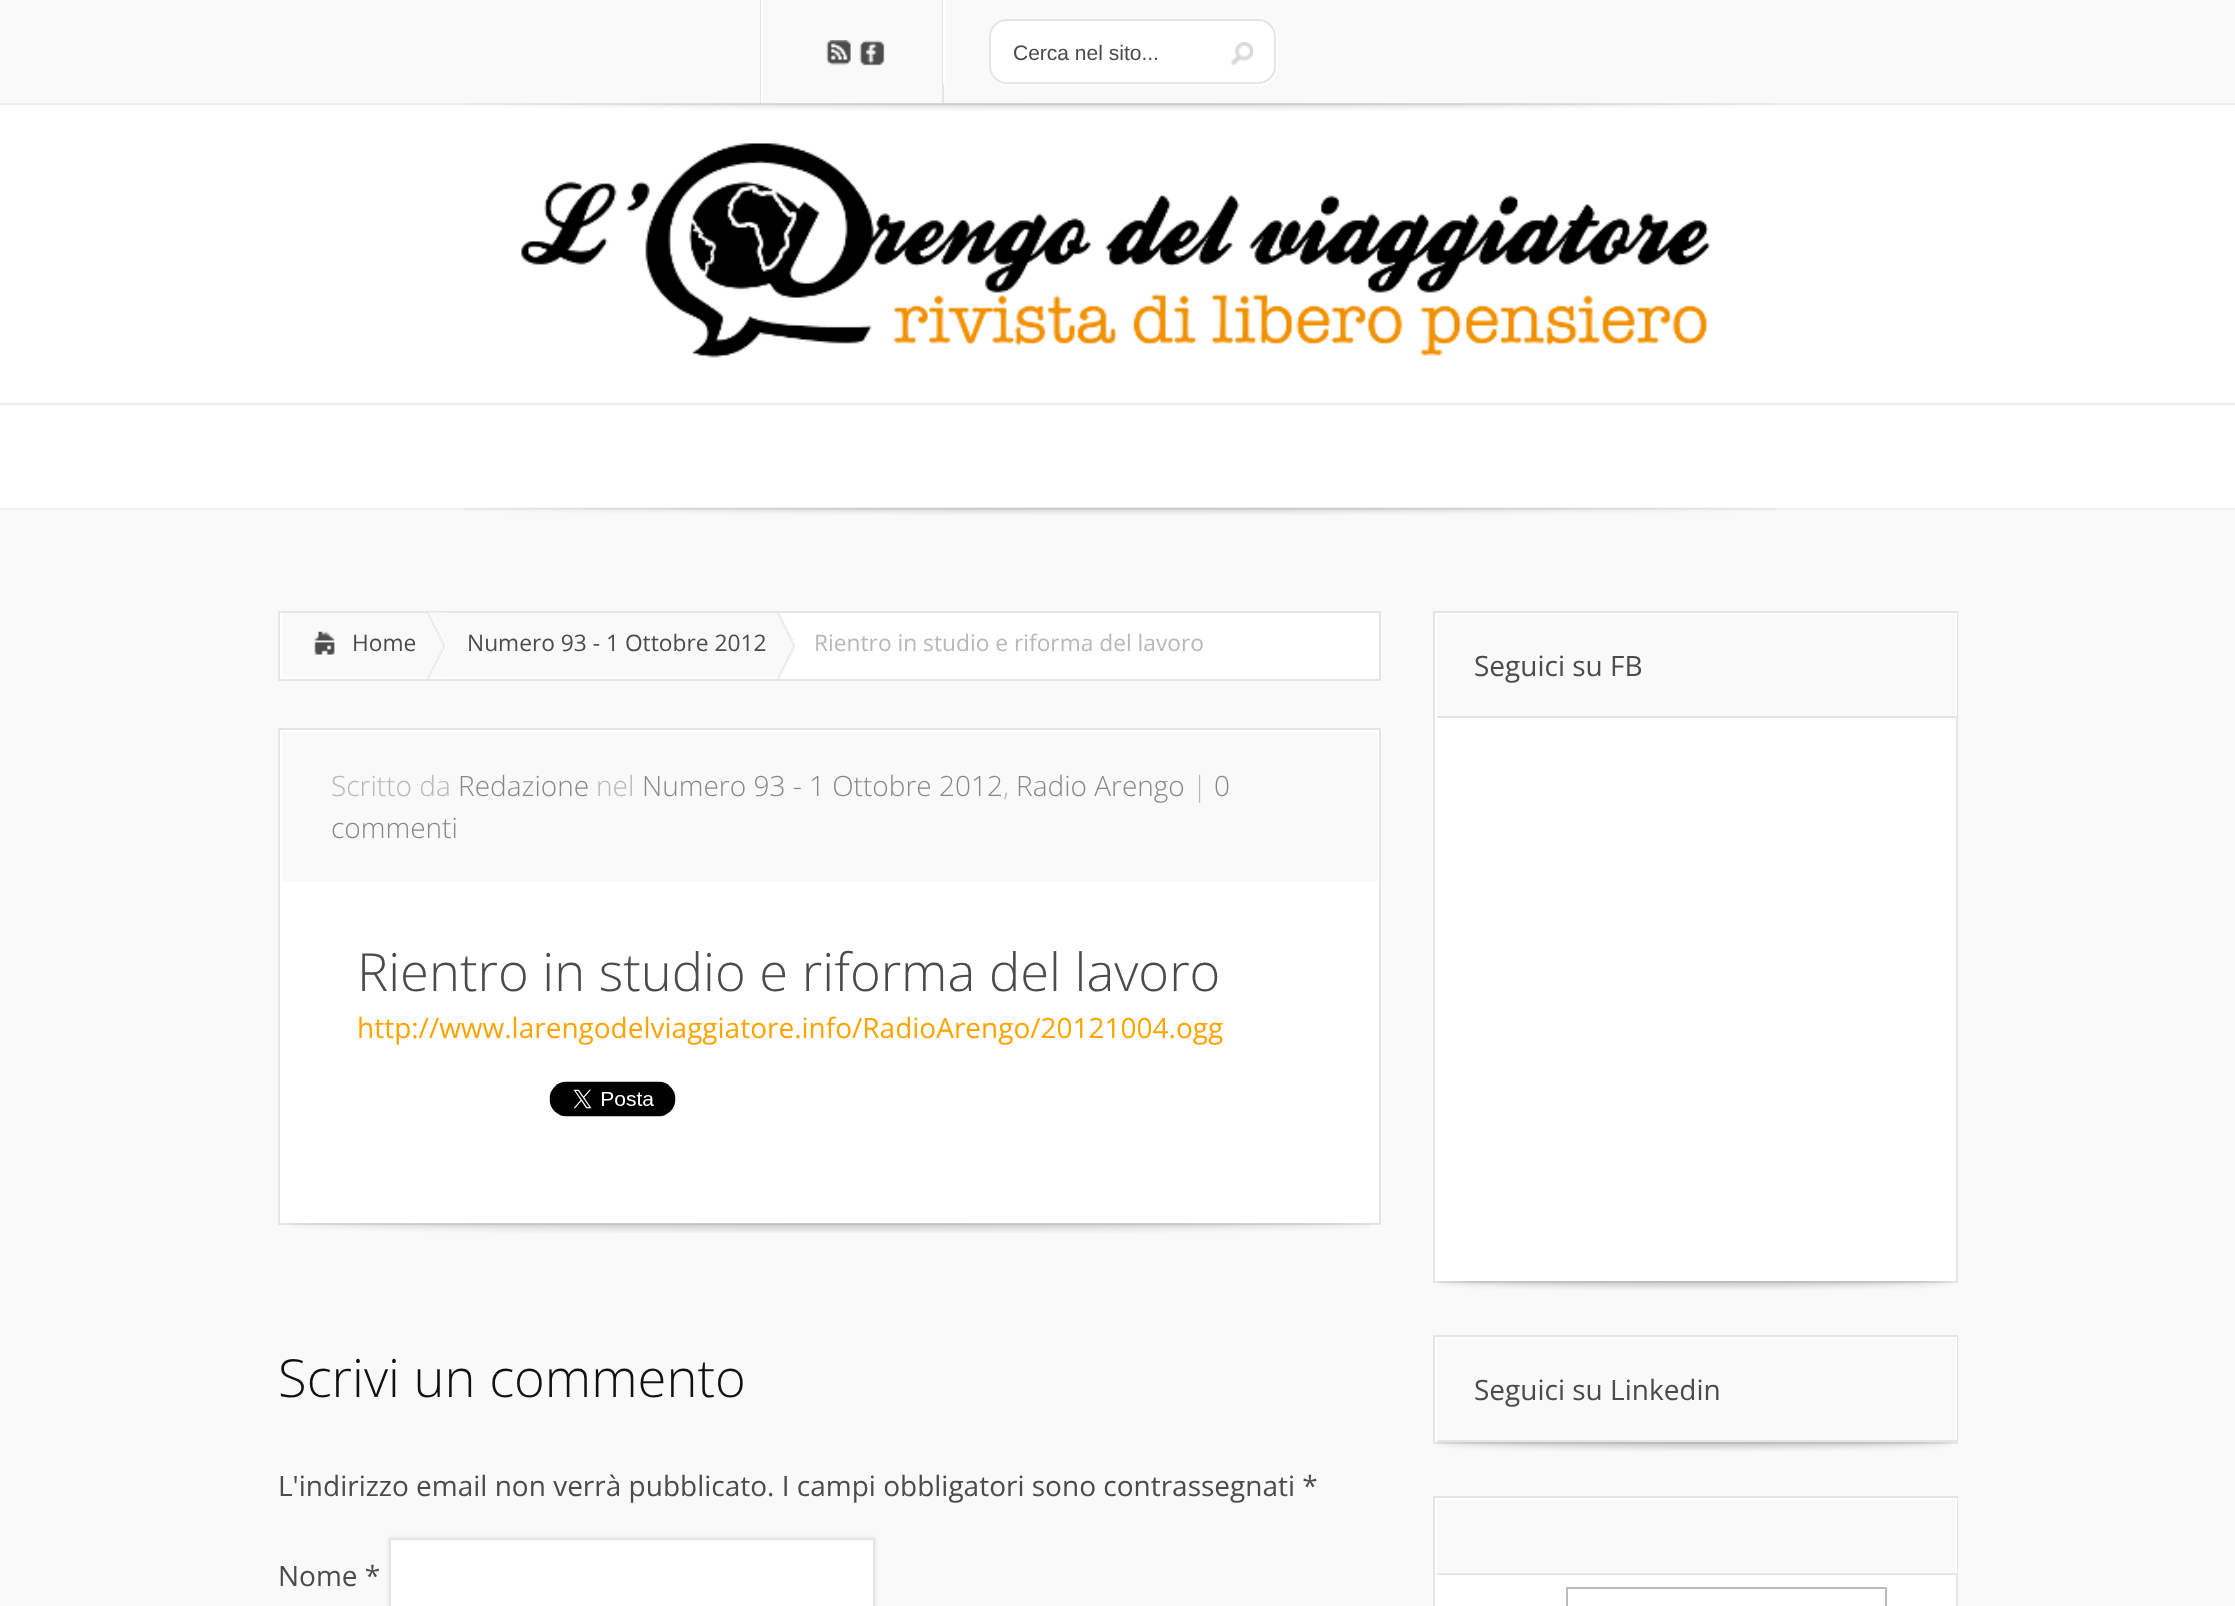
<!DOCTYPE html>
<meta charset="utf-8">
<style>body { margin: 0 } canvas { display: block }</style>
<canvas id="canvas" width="2235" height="1606"></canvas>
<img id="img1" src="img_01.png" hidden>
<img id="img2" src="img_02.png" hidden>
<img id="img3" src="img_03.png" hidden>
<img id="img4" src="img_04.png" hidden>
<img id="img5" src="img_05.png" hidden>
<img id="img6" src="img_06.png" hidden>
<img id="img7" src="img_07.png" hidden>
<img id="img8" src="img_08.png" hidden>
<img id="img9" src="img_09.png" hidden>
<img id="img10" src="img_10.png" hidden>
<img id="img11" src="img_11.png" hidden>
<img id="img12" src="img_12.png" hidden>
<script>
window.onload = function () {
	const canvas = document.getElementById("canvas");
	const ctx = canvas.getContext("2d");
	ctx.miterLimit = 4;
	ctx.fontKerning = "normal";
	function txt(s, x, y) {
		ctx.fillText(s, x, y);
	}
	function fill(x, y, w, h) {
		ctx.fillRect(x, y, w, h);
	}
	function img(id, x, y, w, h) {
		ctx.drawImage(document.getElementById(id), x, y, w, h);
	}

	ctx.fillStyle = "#FFFFFF";
	fill(0, 0, 2235, 1606);
	ctx.fillStyle = "#F9F9F9";
	fill(0, 0, 2235, 103);
	ctx.fillStyle = "#EEEEEE";
	fill(0, 103, 2235, 2);
	ctx.fillStyle = "#E5E5E5";
	fill(760, 0, 1, 103);
	fill(942, 0, 2, 103);
	ctx.fillStyle = "#FFFFFF";
	fill(761, 0, 2, 103);
	img("img1", 826, 40, 26, 26);
	img("img2", 859, 40, 26, 26);
	fill(943, 0, 2, 84);
	ctx.beginPath();
	ctx.moveTo(997, 81);
	ctx.bezierCurveTo(1000, 84, 1004, 86, 1009, 86);
	ctx.lineTo(1260, 86);
	ctx.bezierCurveTo(1270, 86, 1278, 78, 1278, 68);
	ctx.lineTo(1278, 39);
	ctx.bezierCurveTo(1278, 33, 1275, 28, 1271, 25);
	ctx.bezierCurveTo(1274, 28, 1276, 32, 1276, 37);
	ctx.lineTo(1276, 66);
	ctx.bezierCurveTo(1276, 76, 1268, 84, 1258, 84);
	ctx.lineTo(1006, 84);
	ctx.bezierCurveTo(1003, 84, 1000, 83, 997, 81);
	ctx.closePath();
	ctx.fill();
	ctx.beginPath();
	ctx.roundRect(990, 20, 285, 63, 17);
	ctx.fill();
	ctx.strokeStyle = "#E5E5E5";
	ctx.lineWidth = 2;
	ctx.stroke();
	img("img3", 1230, 42, 23, 24);
	img("img4", 464, 103, 1312, 8);
	img("img5", 521, 142, 1190, 216);
	ctx.fillStyle = "#EEEEEE";
	fill(0, 403, 2235, 2);
	fill(0, 508, 2235, 2);
	ctx.fillStyle = "#F9F9F9";
	fill(0, 510, 2235, 1096);
	img("img6", 463, 507, 1314, 8);
	ctx.fillStyle = "#FFFFFF";
	ctx.beginPath();
	ctx.rect(279, 612, 1101, 68);
	ctx.fill();
	ctx.stroke();
	ctx.fillStyle = "#F9F9F9";
	fill(282, 613, 145, 64);
	img("img7", 313, 631, 23, 25);
	img("img8", 427, 612, 19, 67);
	fill(446, 613, 331, 64);
	img("img9", 777, 613, 18, 66);
	ctx.fillStyle = "#FFFFFF";
	fill(280, 882, 1099, 341);
	ctx.strokeRect(279, 729, 1101, 495);
	fill(280, 730, 1099, 2);
	fill(1377, 730, 2, 152);
	fill(280, 730, 2, 152);
	img("img10", 549, 1081, 127, 36);
	img("img11", 289, 1223, 1081, 10);
	ctx.fillStyle = "rgba(0, 0, 0, 0.1)";
	ctx.filter = "blur(2px)";
	ctx.beginPath();
	ctx.rect(389, 1538, 486, 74);
	ctx.fill();
	ctx.filter = "none";
	ctx.fillStyle = "#FFFFFF";
	ctx.beginPath();
	ctx.rect(390, 1539, 484, 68);
	ctx.fill();
	ctx.stroke();
	fill(1435, 718, 521, 563);
	ctx.strokeRect(1434, 612, 523, 670);
	fill(1435, 613, 522, 2);
	fill(1955, 613, 2, 105);
	ctx.fillStyle = "#E5E5E5";
	fill(1435, 716, 522, 2);
	ctx.fillStyle = "#FFFFFF";
	fill(1435, 613, 2, 105);
	img("img12", 1438, 1281, 514, 9);
	ctx.strokeRect(1434, 1336, 523, 107);
	fill(1435, 1337, 522, 2);
	fill(1955, 1337, 2, 105);
	ctx.fillStyle = "#E5E5E5";
	fill(1435, 1440, 522, 2);
	ctx.fillStyle = "#FFFFFF";
	fill(1435, 1337, 2, 105);
	img("img12", 1438, 1442, 514, 9);
	fill(1435, 1575, 521, 31);
	ctx.strokeRect(1434, 1497, 523, 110);
	fill(1435, 1498, 522, 2);
	fill(1955, 1498, 2, 77);
	ctx.fillStyle = "#E5E5E5";
	fill(1435, 1573, 522, 2);
	ctx.fillStyle = "#FFFFFF";
	fill(1435, 1498, 2, 77);
	ctx.strokeStyle = "#BBBBBB";
	ctx.strokeRect(1567, 1588, 319, 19);
	ctx.font = "21px Liberation Sans";
	ctx.fillStyle = "#4B4B4B";
	txt("Cerca nel sito...", 1013, 60);
	ctx.font = "22.75px Open Sans";
	txt("Home", 352, 651);
	txt("Numero 93 - 1 Ottobre 2012", 467, 651);
	ctx.fillStyle = "#B8B8B8";
	txt("Rientro in studio e riforma del lavoro", 814, 651);
	ctx.font = "300 28px Open Sans";
	txt("Scritto da", 331, 796);
	ctx.fillStyle = "#888888";
	txt("Redazione", 458, 796);
	ctx.fillStyle = "#B8B8B8";
	txt("nel", 596, 796);
	ctx.fillStyle = "#888888";
	txt("Numero 93 - 1 Ottobre 2012", 642, 796);
	ctx.fillStyle = "#B8B8B8";
	txt(",", 1003, 796);
	ctx.fillStyle = "#888888";
	txt("Radio Arengo", 1016, 796);
	ctx.fillStyle = "#B8B8B8";
	txt("|", 1192, 796);
	ctx.fillStyle = "#888888";
	txt("0", 1214, 796);
	txt("commenti", 331, 838);
	ctx.font = "300 52.5px Open Sans";
	ctx.fillStyle = "#4B4B4B";
	txt("Rientro in studio e riforma del lavoro", 357, 991);
	ctx.font = "28px Open Sans";
	ctx.fillStyle = "#FFA300";
	txt("http://www.larengodelviaggiatore.info/RadioArengo/20121004.ogg", 357, 1038);
	ctx.font = "300 52.5px Open Sans";
	ctx.fillStyle = "#111111";
	txt("Scrivi un commento", 278, 1397);
	ctx.font = "28px Open Sans";
	ctx.fillStyle = "#4B4B4B";
	txt("L'indirizzo email non verrà pubblicato. I campi obbligatori sono contrassegnati *", 278, 1496);
	txt("Nome *", 278, 1586);
	txt("Seguici su FB", 1474, 676);
	txt("Seguici su Linkedin", 1474, 1400);
};
</script>
